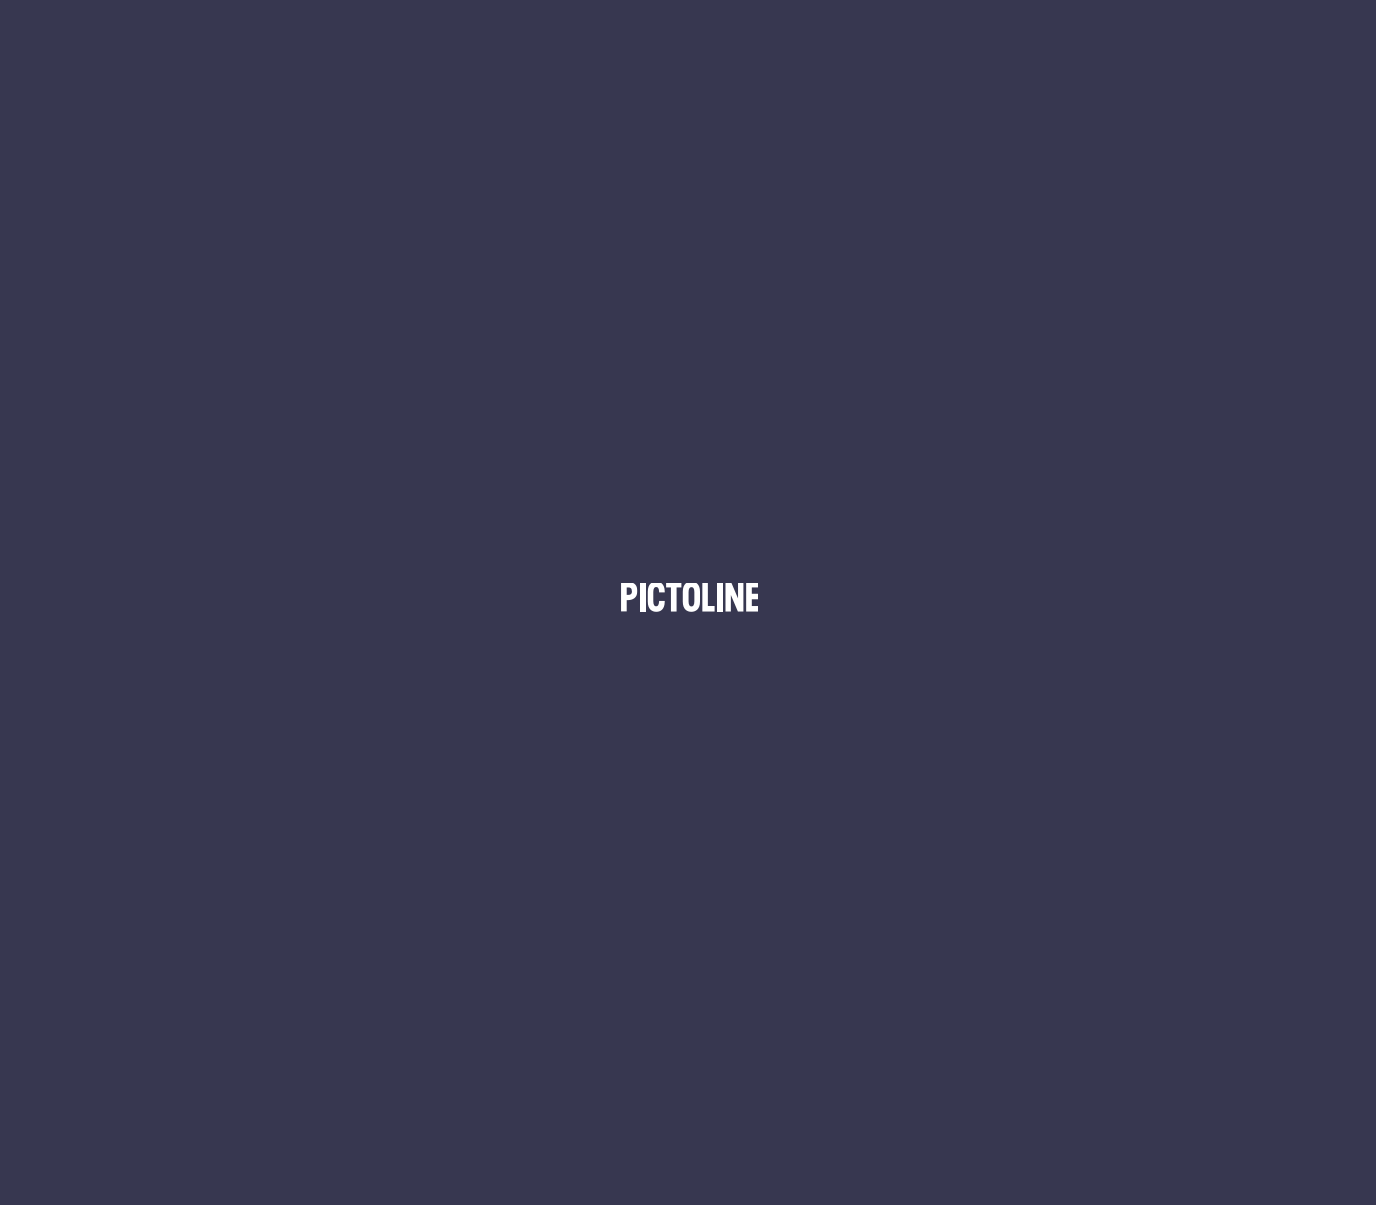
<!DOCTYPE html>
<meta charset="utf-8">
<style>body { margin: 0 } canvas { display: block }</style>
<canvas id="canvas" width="1379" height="1205"></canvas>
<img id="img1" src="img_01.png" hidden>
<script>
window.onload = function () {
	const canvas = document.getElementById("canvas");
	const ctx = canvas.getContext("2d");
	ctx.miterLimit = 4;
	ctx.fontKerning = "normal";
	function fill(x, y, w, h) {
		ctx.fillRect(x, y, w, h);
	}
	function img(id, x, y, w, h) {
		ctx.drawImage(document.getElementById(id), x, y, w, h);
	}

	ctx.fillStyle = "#FFFFFF";
	fill(0, 0, 1379, 1205);
	ctx.fillStyle = "#373750";
	fill(0, 0, 1376, 1205);
	img("img1", 621, 583, 137, 29);
};
</script>
